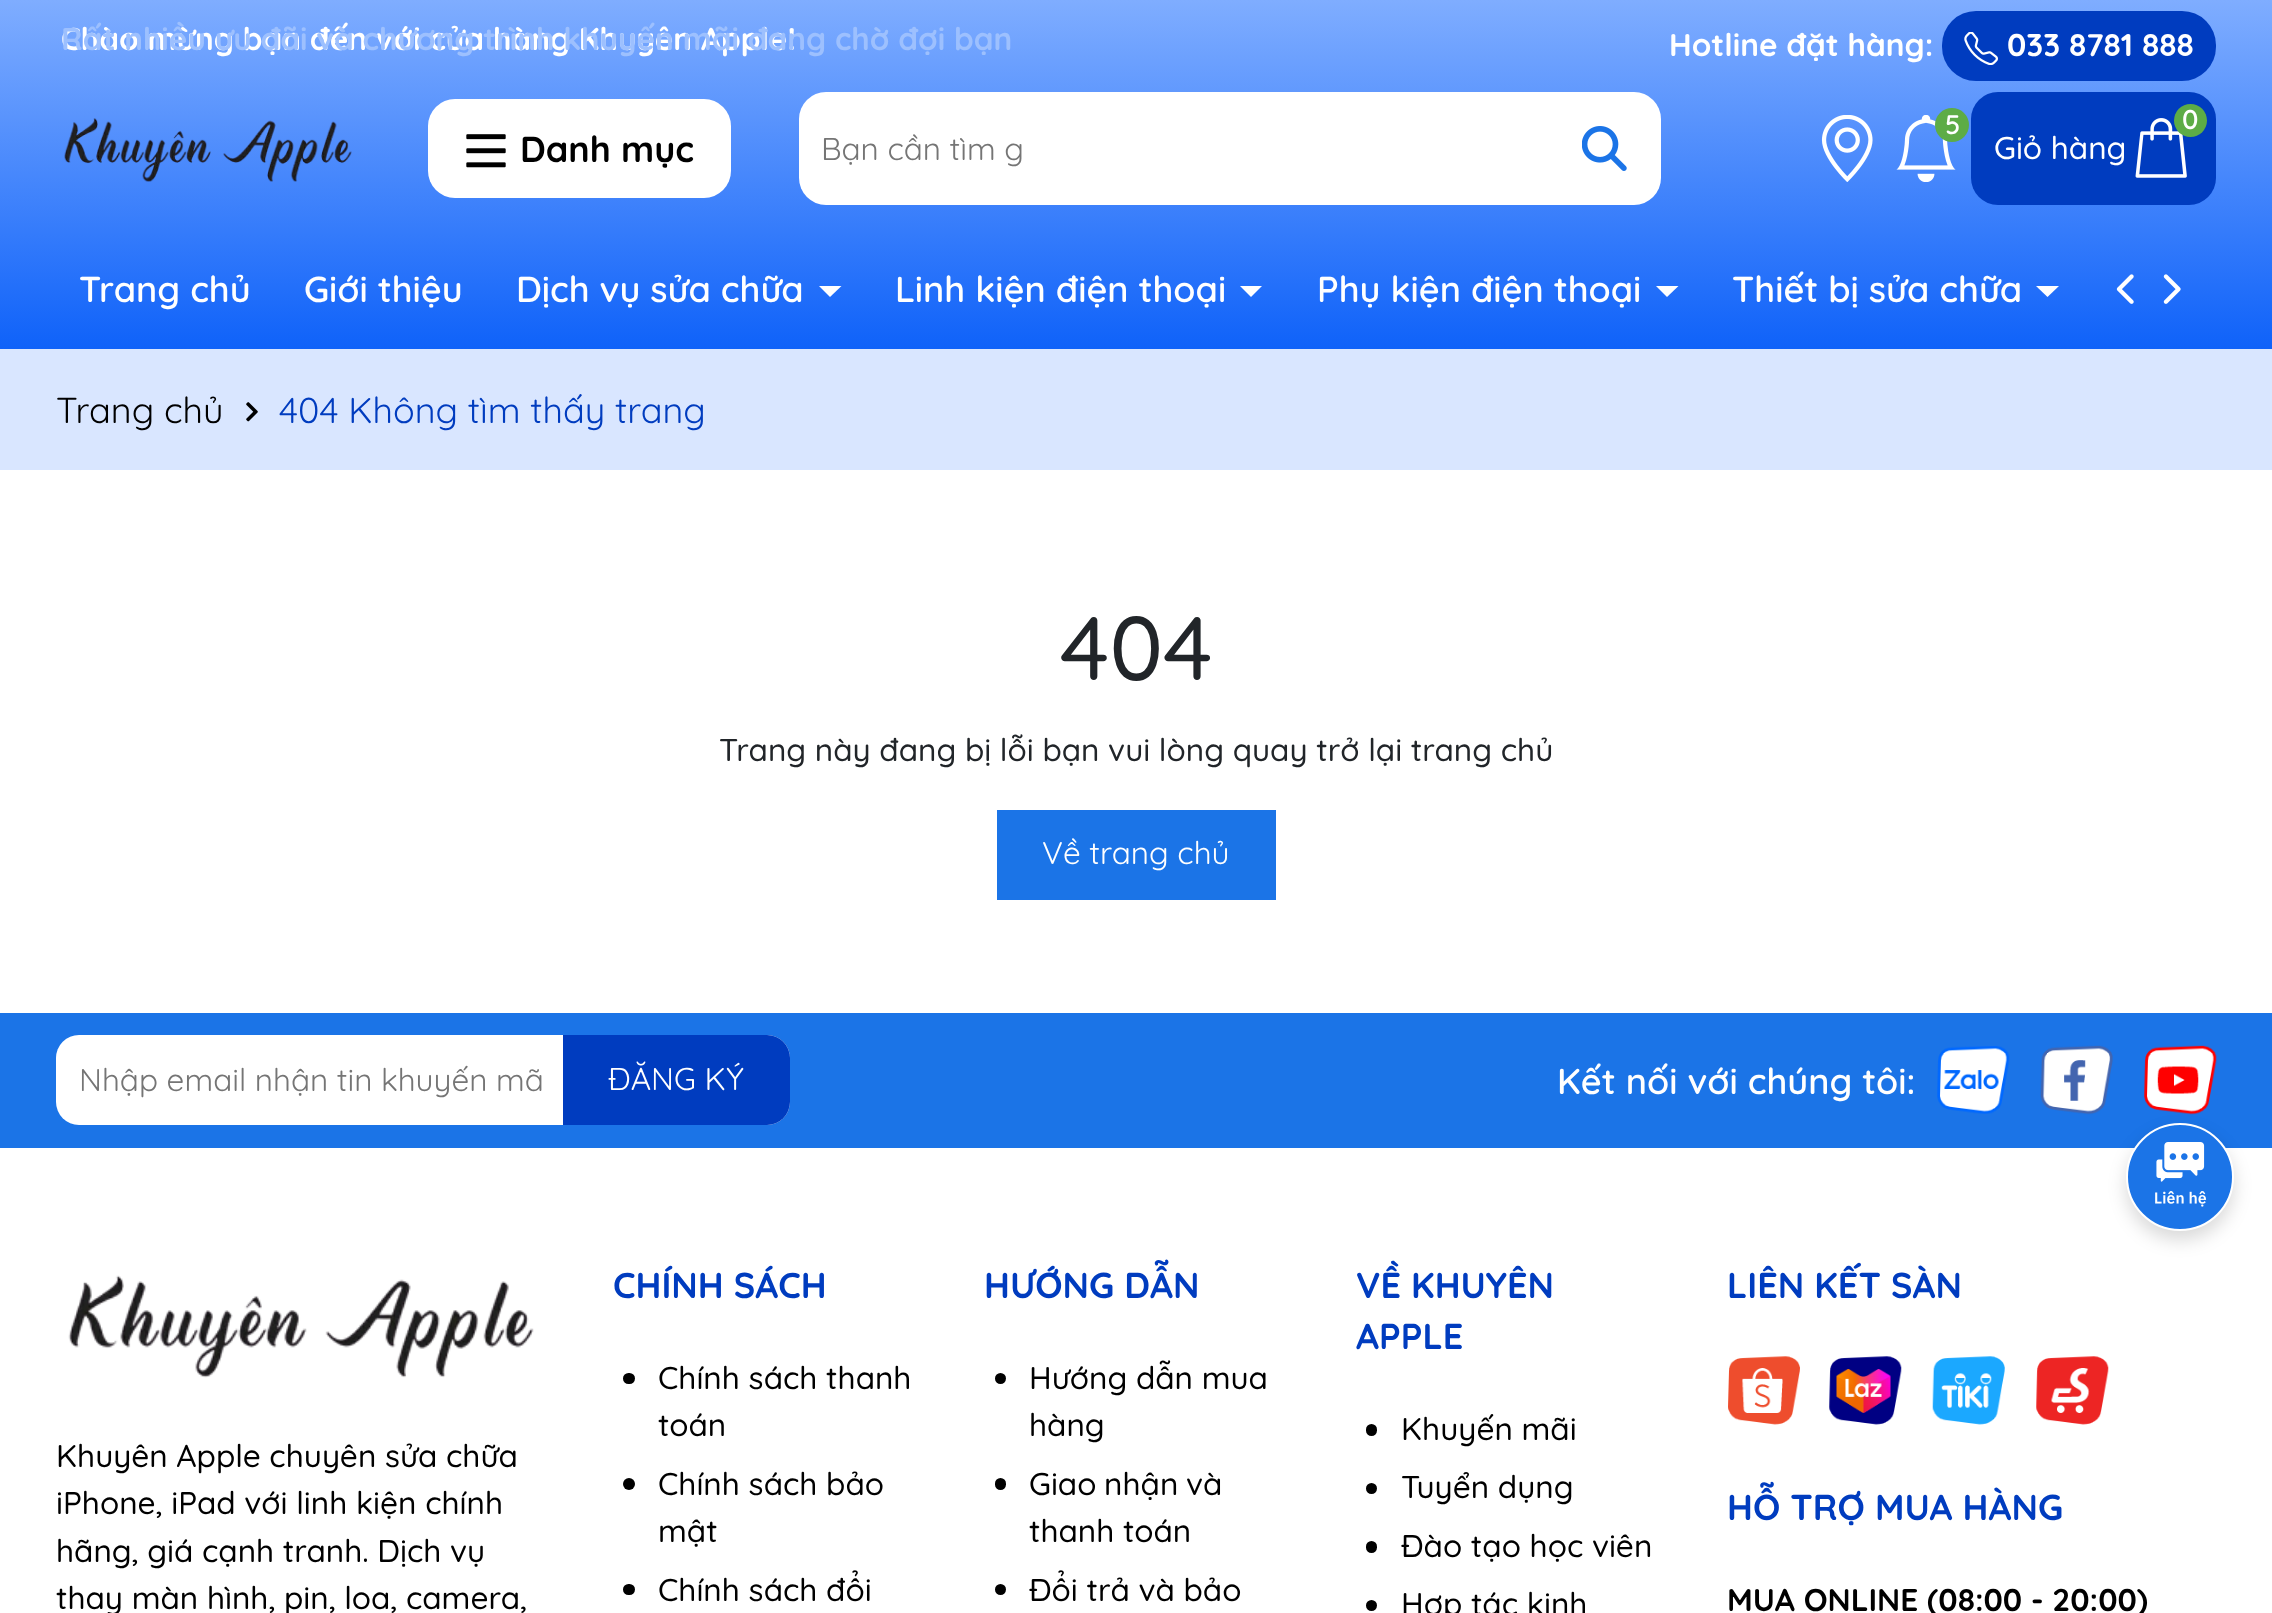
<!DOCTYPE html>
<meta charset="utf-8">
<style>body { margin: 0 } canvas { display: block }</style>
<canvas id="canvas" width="2272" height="1613"></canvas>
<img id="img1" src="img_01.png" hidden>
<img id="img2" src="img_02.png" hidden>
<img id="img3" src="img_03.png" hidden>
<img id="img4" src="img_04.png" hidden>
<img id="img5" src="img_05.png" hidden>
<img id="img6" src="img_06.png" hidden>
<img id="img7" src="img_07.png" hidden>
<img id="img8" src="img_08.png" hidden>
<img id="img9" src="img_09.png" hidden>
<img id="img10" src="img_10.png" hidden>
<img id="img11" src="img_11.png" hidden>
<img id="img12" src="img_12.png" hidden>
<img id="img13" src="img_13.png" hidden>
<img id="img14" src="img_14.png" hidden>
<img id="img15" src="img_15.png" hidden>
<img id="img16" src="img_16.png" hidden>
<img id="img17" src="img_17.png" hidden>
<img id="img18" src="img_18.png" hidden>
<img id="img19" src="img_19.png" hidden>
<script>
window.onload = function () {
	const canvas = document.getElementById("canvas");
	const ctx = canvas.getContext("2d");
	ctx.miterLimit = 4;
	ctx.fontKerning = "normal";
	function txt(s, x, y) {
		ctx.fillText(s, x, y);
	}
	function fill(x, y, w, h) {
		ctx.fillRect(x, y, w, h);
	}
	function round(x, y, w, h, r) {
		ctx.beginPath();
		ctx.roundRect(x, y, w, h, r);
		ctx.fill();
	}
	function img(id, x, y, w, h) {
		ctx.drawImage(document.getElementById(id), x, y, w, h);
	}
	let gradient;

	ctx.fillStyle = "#FFFFFF";
	fill(0, 0, 2272, 1613);
	gradient = ctx.createLinearGradient(1136, 0, 1136, 349);
	gradient.addColorStop(0, "#7FADFF");
	gradient.addColorStop(1, "#0F62F9");
	ctx.fillStyle = gradient;
	fill(0, 0, 2272, 349);
	ctx.fillStyle = "#003CBF";
	round(1942, 11, 274, 70, 34);
	img("img1", 1964, 32, 34, 33);
	img("img2", 64, 118, 288, 64);
	ctx.fillStyle = "#FFFFFF";
	round(428, 99, 303, 99, 27);
	img("img3", 466, 134, 40, 34);
	round(799, 92, 862, 113, 27);
	img("img4", 1582, 126, 45, 45);
	img("img5", 1821, 115, 52, 67);
	img("img6", 1896, 115, 60, 67);
	ctx.fillStyle = "#5DAC46";
	ctx.beginPath();
	ctx.arc(1952, 125, 17, 0, Math.PI * 2);
	ctx.fill();
	ctx.fillStyle = "#003CBF";
	round(1971, 92, 245, 113, 27);
	img("img7", 2135, 118, 52, 60);
	ctx.fillStyle = "#5DAC46";
	ctx.beginPath();
	ctx.arc(2190.5, 120.5, 16.5, 0, Math.PI * 2);
	ctx.fill();
	ctx.fillStyle = "#FFFFFF";
	ctx.beginPath();
	ctx.moveTo(819, 286);
	ctx.lineTo(841.5, 286);
	ctx.lineTo(830, 297);
	ctx.closePath();
	ctx.fill();
	ctx.beginPath();
	ctx.moveTo(1240, 286);
	ctx.lineTo(1262, 286);
	ctx.lineTo(1251, 297);
	ctx.closePath();
	ctx.fill();
	ctx.beginPath();
	ctx.moveTo(1656, 286);
	ctx.lineTo(1678.5, 286);
	ctx.lineTo(1667, 297);
	ctx.closePath();
	ctx.fill();
	ctx.beginPath();
	ctx.moveTo(2036, 286);
	ctx.lineTo(2059, 286);
	ctx.lineTo(2047.5, 297);
	ctx.closePath();
	ctx.fill();
	img("img8", 2116, 274, 18, 30);
	img("img9", 2163, 274, 18, 30);
	ctx.fillStyle = "#D9E6FF";
	fill(0, 349, 2272, 121);
	img("img10", 246, 402, 12, 20);
	ctx.fillStyle = "#1B74E7";
	fill(997, 810, 279, 90);
	fill(0, 1013, 2272, 135);
	ctx.fillStyle = "#FFFFFF";
	round(56, 1035, 734, 90, 23);
	ctx.fillStyle = "#003CBF";
	ctx.beginPath();
	ctx.roundRect(563, 1035, 227, 90, [0, 23, 23, 0]);
	ctx.fill();
	img("img11", 1937, 1046, 73, 68);
	img("img12", 2040, 1045, 73, 70);
	img("img13", 2144, 1045, 73, 70);
	img("img14", 68, 1275, 466, 103);
	ctx.fillStyle = "#000000";
	round(623, 1373, 12, 11, 5.5);
	ctx.beginPath();
	ctx.arc(629, 1484, 6, 0, Math.PI * 2);
	ctx.fill();
	round(623, 1584, 12, 11, 5.5);
	ctx.beginPath();
	ctx.arc(1000.5, 1378.5, 5.5, 0, Math.PI * 2);
	ctx.fill();
	round(995, 1478, 11, 12, 5.5);
	ctx.beginPath();
	ctx.arc(1000.5, 1589.5, 5.5, 0, Math.PI * 2);
	ctx.fill();
	round(1366, 1424, 11, 12, 5.5);
	ctx.beginPath();
	ctx.arc(1371.5, 1488.5, 5.5, 0, Math.PI * 2);
	ctx.fill();
	round(1366, 1541, 11, 12, 5.5);
	ctx.beginPath();
	ctx.arc(1371.5, 1605.5, 5.5, 0, Math.PI * 2);
	ctx.fill();
	img("img15", 1728, 1356, 72, 69);
	img("img16", 1829, 1356, 73, 69);
	img("img17", 1932, 1356, 73, 69);
	img("img18", 2036, 1356, 73, 69);
	ctx.fillStyle = "rgba(0, 0, 0, 0.15)";
	ctx.filter = "blur(9px)";
	ctx.beginPath();
	ctx.roundRect(2126, 1132, 108, 108, 54);
	ctx.fill();
	ctx.filter = "none";
	ctx.fillStyle = "#1B74E7";
	ctx.beginPath();
	ctx.arc(2180, 1177, 53, 0, Math.PI * 2);
	ctx.fill();
	ctx.strokeStyle = "#FFFFFF";
	ctx.lineWidth = 2;
	ctx.stroke();
	img("img19", 2155, 1142, 52, 65);
	ctx.font = "bold 31.5px Quicksand";
	ctx.fillStyle = "#FFFFFF";
	txt("Chào mừng bạn đến với cửa hàng Khuyên Apple!", 61, 50);
	ctx.fillStyle = "#9DC0FE";
	txt("Rất nhiều ưu đãi và chương trình khuyến mãi đang chờ đợi bạn", 61, 50);
	ctx.fillStyle = "#FFFFFF";
	txt("Hotline đặt hàng:", 1669, 56);
	txt("033 8781 888", 2007, 56);
	ctx.font = "bold 36px Quicksand";
	ctx.fillStyle = "#000000";
	txt("Danh mục", 520, 162);
	ctx.font = "31.5px Quicksand";
	ctx.fillStyle = "#757575";
	txt("Bạn cần tìm g", 821, 160);
	ctx.font = "600 27px Quicksand";
	ctx.fillStyle = "#FFFFFF";
	txt("5", 1945, 134);
	ctx.font = "500 31.5px Quicksand";
	txt("Giỏ hàng", 1994, 159);
	ctx.font = "600 27px Quicksand";
	txt("0", 2182, 129);
	ctx.font = "600 36px Quicksand";
	txt("Trang chủ", 79, 302);
	txt("Giới thiệu", 304, 302);
	txt("Dịch vụ sửa chữa", 516, 302);
	txt("Linh kiện điện thoại", 895, 302);
	txt("Phụ kiện điện thoại", 1317, 302);
	txt("Thiết bị sửa chữa", 1732, 302);
	ctx.font = "36px Quicksand";
	ctx.fillStyle = "#000000";
	txt("Trang chủ", 56, 423);
	ctx.fillStyle = "#003CBF";
	txt("404 Không tìm thấy trang", 279, 423);
	ctx.font = "500 90px Quicksand";
	ctx.fillStyle = "#212529";
	txt("404", 1060, 680);
	ctx.font = "500 31.5px Quicksand";
	txt("Trang này đang bị lỗi bạn vui lòng quay trở lại trang chủ", 719, 761);
	ctx.font = "31.5px Quicksand";
	ctx.fillStyle = "#FFFFFF";
	txt("Về trang chủ", 1042, 864);
	ctx.fillStyle = "#757575";
	txt("Nhập email nhận tin khuyến mã", 79, 1091);
	ctx.fillStyle = "#FFFFFF";
	txt("ĐĂNG KÝ", 608, 1090);
	ctx.font = "600 36px Quicksand";
	txt("Kết nối với chúng tôi:", 1557, 1094);
	ctx.font = "500 31.5px Quicksand";
	ctx.fillStyle = "#000000";
	txt("Khuyên Apple chuyên sửa chữa", 56, 1467);
	txt("iPhone, iPad với linh kiện chính", 56, 1514);
	txt("hãng, giá cạnh tranh. Dịch vụ", 56, 1562);
	txt("thay màn hình, pin, loa, camera,", 56, 1609);
	ctx.font = "bold 36px Quicksand";
	ctx.fillStyle = "#003CBF";
	txt("CHÍNH SÁCH", 613, 1298);
	ctx.font = "500 31.5px Quicksand";
	ctx.fillStyle = "#000000";
	txt("Chính sách thanh", 658, 1389);
	txt("toán", 658, 1436);
	txt("Chính sách bảo", 658, 1495);
	txt("mật", 658, 1542);
	txt("Chính sách đổi", 658, 1601);
	ctx.font = "bold 36px Quicksand";
	ctx.fillStyle = "#003CBF";
	txt("HƯỚNG DẪN", 984, 1298);
	ctx.font = "500 31.5px Quicksand";
	ctx.fillStyle = "#000000";
	txt("Hướng dẫn mua", 1029, 1389);
	txt("hàng", 1029, 1436);
	ctx.wordSpacing = "-1px";
	txt("Giao nhận và", 1029, 1495);
	ctx.wordSpacing = "0px";
	txt("thanh toán", 1029, 1542);
	txt("Đổi trả và bảo", 1029, 1601);
	ctx.font = "bold 36px Quicksand";
	ctx.fillStyle = "#003CBF";
	txt("VỀ KHUYÊN", 1356, 1298);
	txt("APPLE", 1356, 1349);
	ctx.font = "500 31.5px Quicksand";
	ctx.fillStyle = "#000000";
	txt("Khuyến mãi", 1401, 1440);
	txt("Tuyển dụng", 1401, 1498);
	txt("Đào tạo học viên", 1401, 1557);
	txt("Hợp tác kinh", 1401, 1615);
	ctx.font = "bold 36px Quicksand";
	ctx.fillStyle = "#003CBF";
	txt("LIÊN KẾT SÀN", 1727, 1298);
	txt("HỖ TRỢ MUA HÀNG", 1727, 1520);
	ctx.font = "bold 31.5px Quicksand";
	ctx.fillStyle = "#000000";
	txt("MUA ONLINE (08:00 - 20:00)", 1727, 1611);
};
</script>
